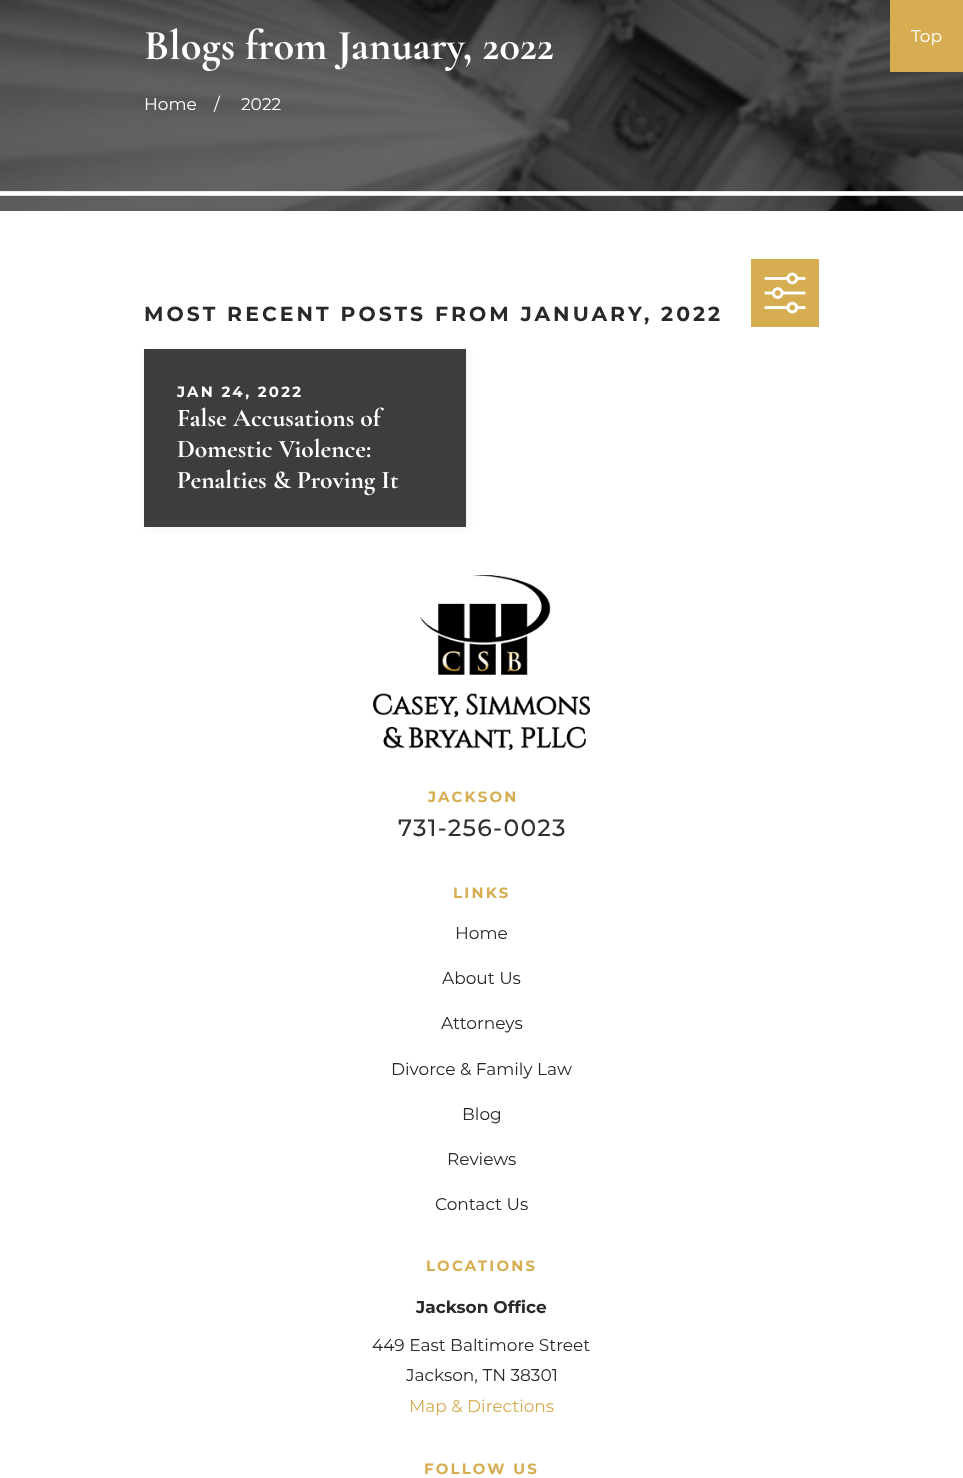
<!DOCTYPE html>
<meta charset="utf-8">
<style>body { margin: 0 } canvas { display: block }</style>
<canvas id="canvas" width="963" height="1478"></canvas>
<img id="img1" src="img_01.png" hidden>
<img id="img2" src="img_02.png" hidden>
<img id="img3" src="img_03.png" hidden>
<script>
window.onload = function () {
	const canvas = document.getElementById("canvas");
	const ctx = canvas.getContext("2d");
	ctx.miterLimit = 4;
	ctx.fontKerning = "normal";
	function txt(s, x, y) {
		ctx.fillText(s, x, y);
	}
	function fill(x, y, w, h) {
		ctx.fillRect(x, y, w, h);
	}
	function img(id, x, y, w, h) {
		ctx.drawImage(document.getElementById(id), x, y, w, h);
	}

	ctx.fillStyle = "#FFFFFF";
	fill(0, 0, 963, 1478);
	img("img1", 0, 0, 963, 211);
	ctx.fillStyle = "#D7AD51";
	fill(751, 259, 68, 68);
	img("img2", 764, 272, 42, 42);
	ctx.fillStyle = "rgba(0, 0, 0, 0.05)";
	ctx.filter = "blur(4.5px)";
	ctx.beginPath();
	ctx.rect(146, 351, 322, 178);
	ctx.fill();
	ctx.filter = "none";
	ctx.fillStyle = "#3D3D3D";
	fill(144, 349, 322, 178);
	ctx.fillStyle = "#D7AD51";
	fill(890, 0, 73, 72);
	img("img3", 373, 575, 217, 175);
	ctx.font = "bold 42.5px Cormorant Garamond";
	ctx.fillStyle = "#FFFFFF";
	txt("Blogs from January, 2022", 144, 59);
	ctx.font = "17px Montserrat";
	txt("Home", 144, 110);
	txt("/", 214, 110);
	txt("2022", 241, 110);
	ctx.letterSpacing = "3.05px";
	ctx.font = "bold 20.4px Montserrat";
	ctx.fillStyle = "#292929";
	txt("MOST RECENT POSTS FROM JANUARY, 2022", 144, 321);
	ctx.letterSpacing = "2.25px";
	ctx.font = "bold 14.9px Montserrat";
	ctx.fillStyle = "#FFFFFF";
	txt("JAN 24, 2022", 177, 397);
	ctx.letterSpacing = "0px";
	ctx.font = "bold 25.5px Cormorant Garamond";
	txt("False Accusations of", 177, 426);
	txt("Domestic Violence:", 177, 457);
	txt("Penalties & Proving It", 177, 488);
	ctx.font = "17px Montserrat";
	txt("Top", 911, 42);
	ctx.letterSpacing = "2.25px";
	ctx.font = "bold 14.9px Montserrat";
	ctx.fillStyle = "#D7AD51";
	txt("JACKSON", 428, 802);
	ctx.letterSpacing = "1.25px";
	ctx.font = "500 23.5px Montserrat";
	ctx.fillStyle = "#303030";
	txt("731-256-0023", 398, 836);
	ctx.letterSpacing = "2.25px";
	ctx.font = "bold 14.9px Montserrat";
	ctx.fillStyle = "#D7AD51";
	txt("LINKS", 453, 898);
	ctx.letterSpacing = "0px";
	ctx.font = "17px Montserrat";
	ctx.fillStyle = "#292929";
	txt("Home", 455, 939);
	txt("About Us", 442, 984);
	txt("Attorneys", 441, 1029);
	txt("Divorce & Family Law", 391, 1075);
	txt("Blog", 462, 1120);
	txt("Reviews", 447, 1165);
	txt("Contact Us", 435, 1210);
	ctx.letterSpacing = "2.25px";
	ctx.font = "bold 14.9px Montserrat";
	ctx.fillStyle = "#D7AD51";
	txt("LOCATIONS", 426, 1271);
	ctx.letterSpacing = "0px";
	ctx.font = "bold 17px Montserrat";
	ctx.fillStyle = "#292929";
	txt("Jackson Office", 416, 1313);
	ctx.font = "17px Montserrat";
	txt("449 East Baltimore Street", 372, 1351);
	txt("Jackson, TN 38301", 406, 1381);
	ctx.fillStyle = "#D7AD51";
	txt("Map & Directions", 409, 1412);
	ctx.letterSpacing = "2.25px";
	ctx.font = "bold 14.9px Montserrat";
	txt("FOLLOW US", 424, 1474);
};
</script>
